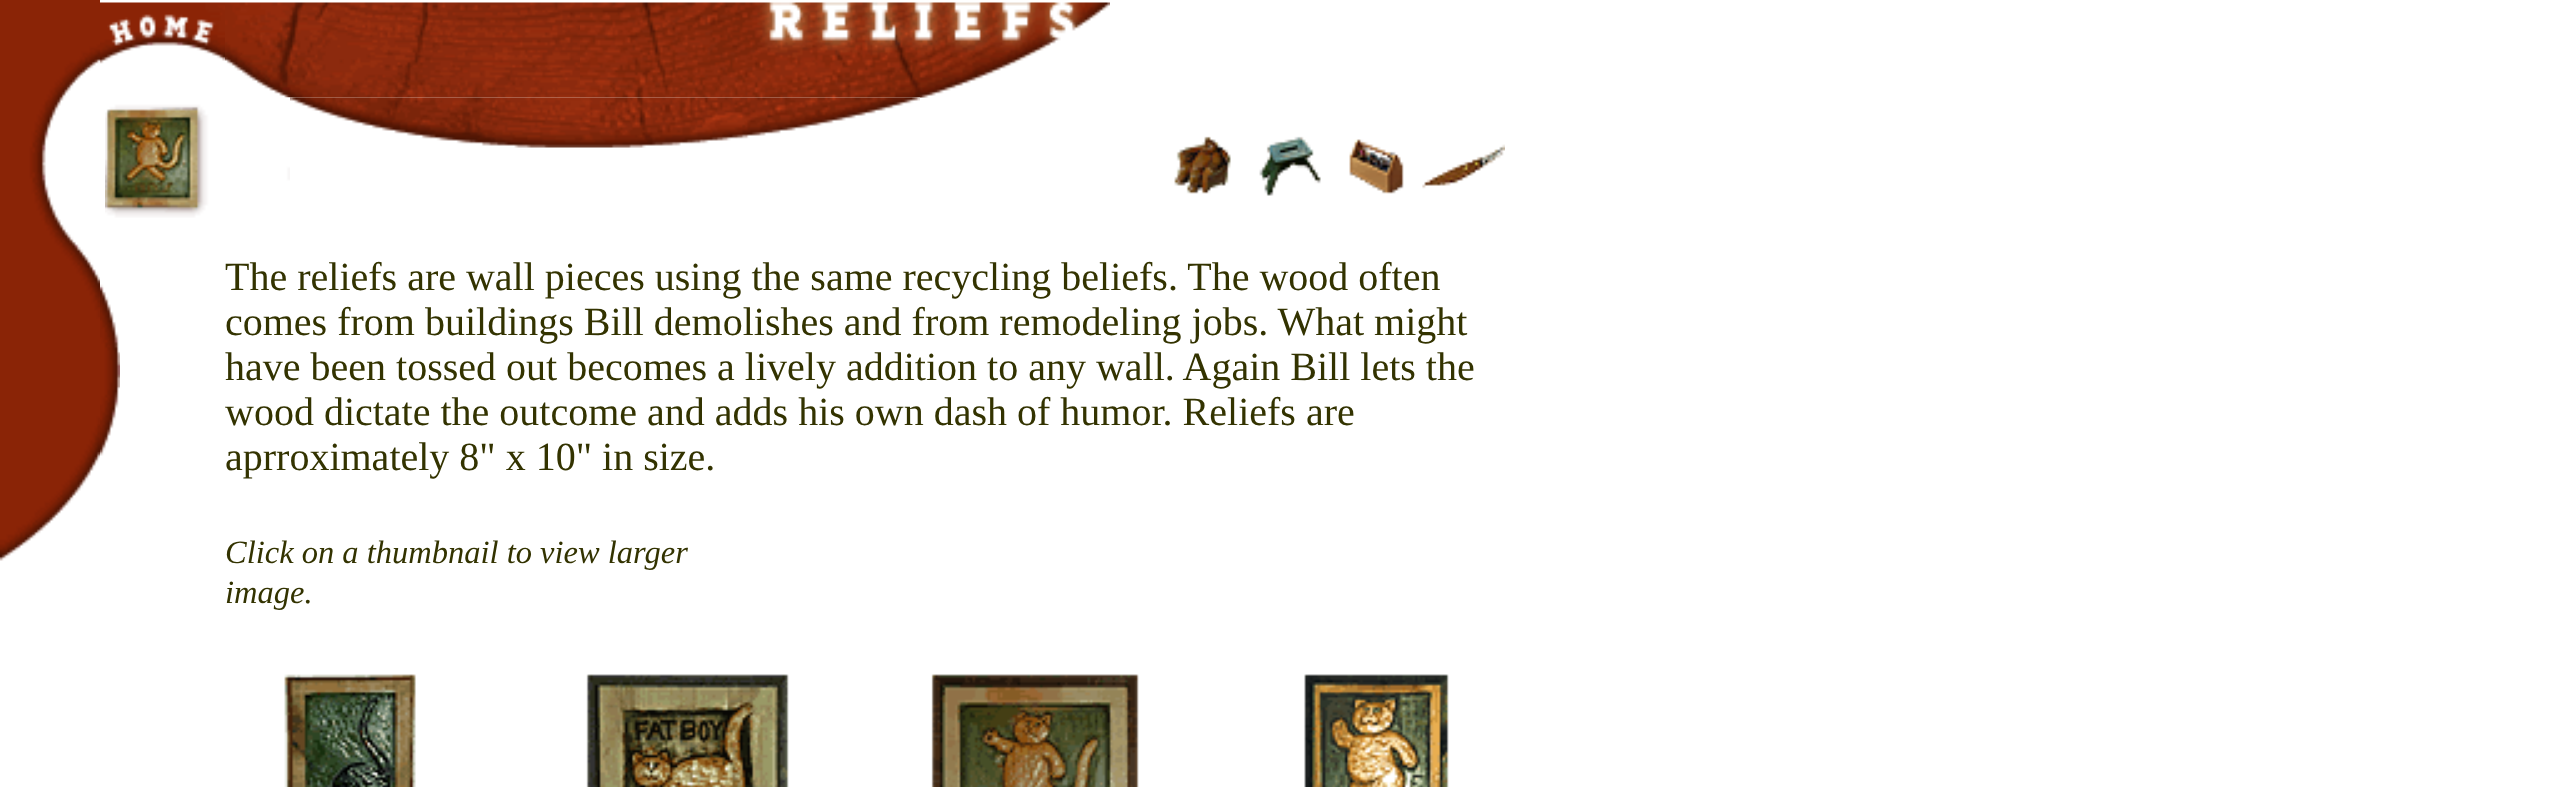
<!DOCTYPE html>
<meta charset="utf-8">
<style>body { margin: 0 } canvas { display: block }</style>
<canvas id="canvas" width="2564" height="787"></canvas>
<img id="img1" src="img_01.png" hidden>
<img id="img2" src="img_02.png" hidden>
<img id="img3" src="img_03.png" hidden>
<img id="img4" src="img_04.png" hidden>
<img id="img5" src="img_05.png" hidden>
<img id="img6" src="img_06.png" hidden>
<img id="img7" src="img_07.png" hidden>
<img id="img8" src="img_08.png" hidden>
<img id="img9" src="img_09.png" hidden>
<img id="img10" src="img_10.png" hidden>
<img id="img11" src="img_11.png" hidden>
<img id="img12" src="img_12.png" hidden>
<img id="img13" src="img_13.png" hidden>
<img id="img14" src="img_14.png" hidden>
<img id="img15" src="img_15.png" hidden>
<script>
window.onload = function () {
	const canvas = document.getElementById("canvas");
	const ctx = canvas.getContext("2d");
	ctx.miterLimit = 4;
	ctx.fontKerning = "normal";
	function txt(s, x, y) {
		ctx.fillText(s, x, y);
	}
	function fill(x, y, w, h) {
		ctx.fillRect(x, y, w, h);
	}
	function img(id, x, y, w, h) {
		ctx.drawImage(document.getElementById(id), x, y, w, h);
	}

	ctx.fillStyle = "#FFFFFF";
	fill(0, 0, 2564, 787);
	img("img1", 0, 0, 100, 561);
	img("img2", 100, 2, 125, 62);
	img("img3", 225, 2, 355, 96);
	img("img4", 580, 2, 530, 96);
	img("img5", 105, 97, 185, 121);
	img("img6", 290, 97, 630, 51);
	img("img7", 1174, 136, 57, 58);
	img("img8", 1259, 136, 62, 60);
	img("img9", 1349, 139, 55, 55);
	img("img10", 1422, 144, 83, 45);
	img("img11", 100, 284, 20, 172);
	img("img12", 284, 674, 132, 113);
	img("img13", 586, 674, 203, 113);
	img("img14", 931, 674, 208, 113);
	img("img15", 1304, 674, 145, 113);
	ctx.font = "40px Liberation Serif";
	ctx.fillStyle = "#333300";
	txt("The reliefs are wall pieces using the same recycling beliefs. The wood often", 225, 290);
	txt("comes from buildings Bill demolishes and from remodeling jobs. What might", 225, 335);
	txt("have been tossed out becomes a lively addition to any wall. Again Bill lets the", 225, 380);
	txt("wood dictate the outcome and adds his own dash of humor. Reliefs are", 225, 425);
	txt("aprroximately 8\" x 10\" in size.", 225, 470);
	ctx.font = "italic 32.5px Liberation Serif";
	txt("Click on a thumbnail to view larger", 225, 563);
	txt("image.", 225, 603);
};
</script>
